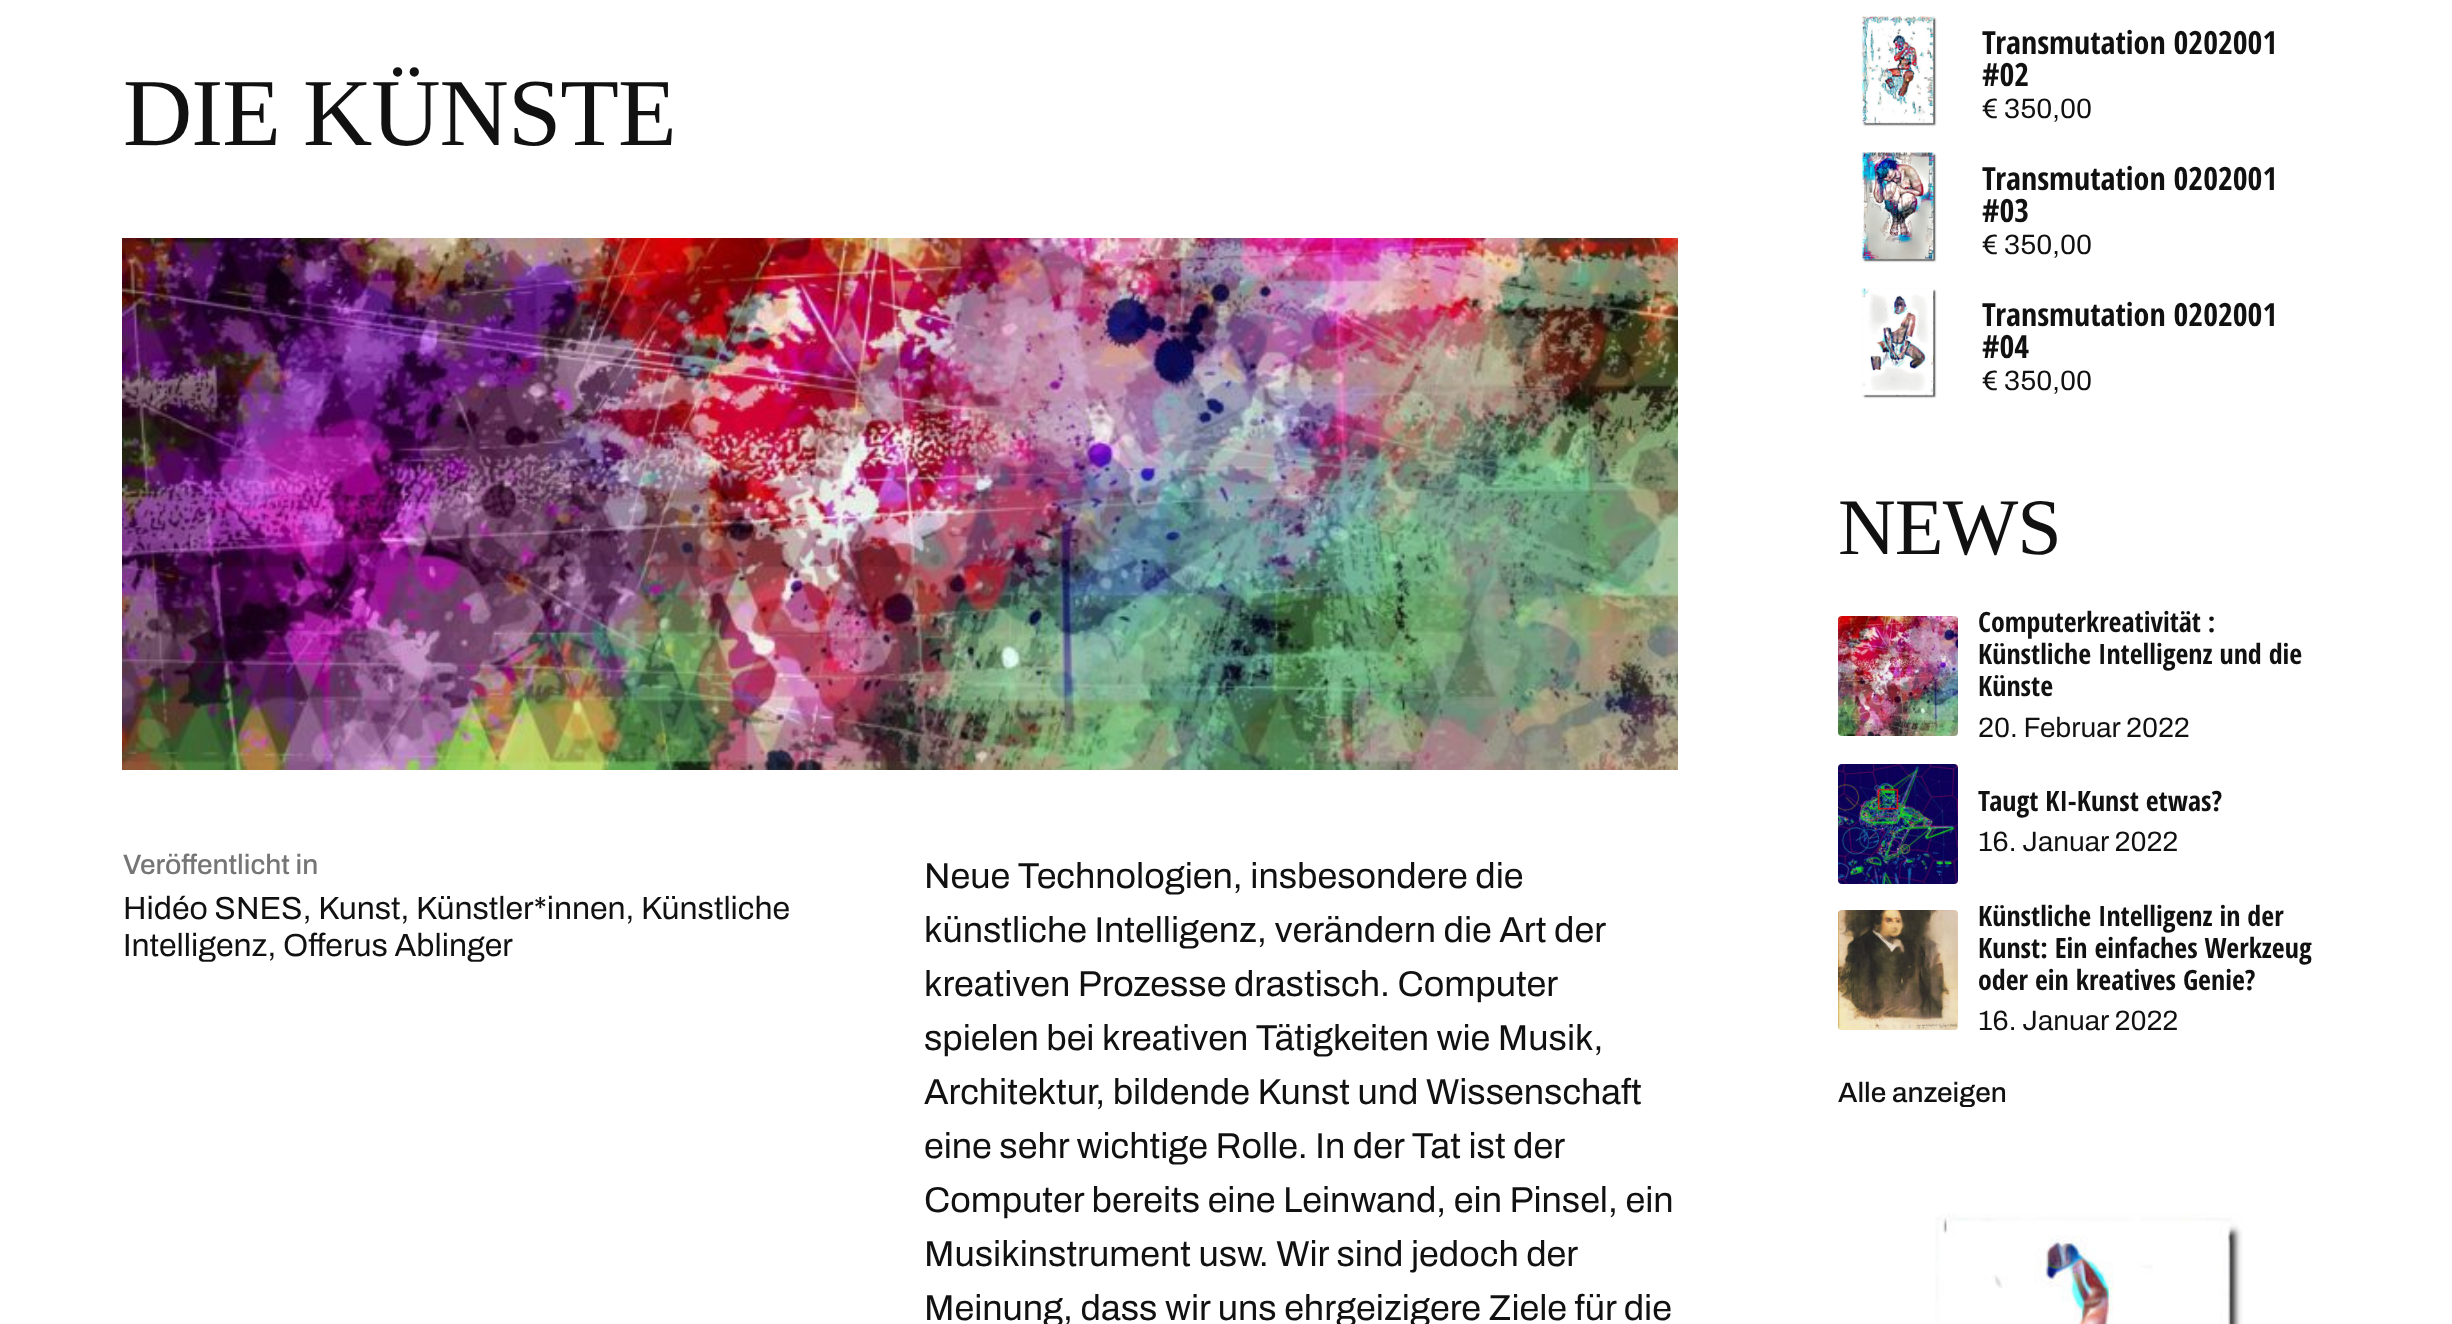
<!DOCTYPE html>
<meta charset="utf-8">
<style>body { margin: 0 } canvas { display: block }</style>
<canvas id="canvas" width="2452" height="1324"></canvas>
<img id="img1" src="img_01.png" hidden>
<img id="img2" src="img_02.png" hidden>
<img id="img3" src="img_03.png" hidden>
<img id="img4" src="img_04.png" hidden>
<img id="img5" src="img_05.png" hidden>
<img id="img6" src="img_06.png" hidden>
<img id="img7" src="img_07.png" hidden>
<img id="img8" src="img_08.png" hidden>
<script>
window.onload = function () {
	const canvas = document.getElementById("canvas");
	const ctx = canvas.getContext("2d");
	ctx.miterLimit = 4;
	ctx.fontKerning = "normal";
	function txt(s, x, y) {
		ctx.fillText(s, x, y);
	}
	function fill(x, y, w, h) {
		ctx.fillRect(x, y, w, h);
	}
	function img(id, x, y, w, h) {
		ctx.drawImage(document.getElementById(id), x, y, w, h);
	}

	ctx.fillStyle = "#FFFFFF";
	fill(0, 0, 2452, 1324);
	img("img1", 122, 238, 1556, 532);
	img("img2", 1860, 16, 77, 111);
	img("img3", 1860, 152, 77, 111);
	img("img4", 1860, 288, 77, 111);
	img("img5", 1838, 616, 120, 120);
	img("img6", 1838, 764, 120, 120);
	img("img7", 1838, 910, 120, 120);
	img("img8", 1935, 1213, 308, 111);
	ctx.letterSpacing = "-1px";
	ctx.font = "96px Liberation Serif";
	ctx.fillStyle = "#111111";
	txt("DIE KÜNSTE", 123, 145);
	ctx.letterSpacing = "0px";
	ctx.font = "600 28px Archivo";
	ctx.fillStyle = "#767676";
	txt("Veröffentlicht in", 123, 874);
	ctx.font = "600 32px 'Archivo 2'";
	ctx.fillStyle = "#111111";
	txt("Hidéo SNES, Kunst, Künstler*innen, Künstliche", 123, 919);
	txt("Intelligenz, Offerus Ablinger", 123, 956);
	ctx.font = "600 36px 'Archivo 2'";
	txt("Neue Technologien, insbesondere die", 924, 888);
	txt("künstliche Intelligenz, verändern die Art der", 924, 942);
	txt("kreativen Prozesse drastisch. Computer", 924, 996);
	txt("spielen bei kreativen Tätigkeiten wie Musik,", 924, 1050);
	txt("Architektur, bildende Kunst und Wissenschaft", 924, 1104);
	txt("eine sehr wichtige Rolle. In der Tat ist der", 924, 1158);
	txt("Computer bereits eine Leinwand, ein Pinsel, ein", 924, 1212);
	txt("Musikinstrument usw. Wir sind jedoch der", 924, 1266);
	txt("Meinung, dass wir uns ehrgeizigere Ziele für die", 924, 1320);
	ctx.font = "bold 32px Open Sans Condensed";
	txt("Transmutation 0202001", 1982, 54);
	txt("#02", 1982, 86);
	ctx.font = "600 28px 'Archivo 2'";
	txt("€ 350,00", 1982, 118);
	ctx.font = "bold 32px Open Sans Condensed";
	txt("Transmutation 0202001", 1982, 190);
	txt("#03", 1982, 222);
	ctx.font = "600 28px 'Archivo 2'";
	txt("€ 350,00", 1982, 254);
	ctx.font = "bold 32px Open Sans Condensed";
	txt("Transmutation 0202001", 1982, 326);
	txt("#04", 1982, 358);
	ctx.font = "600 28px 'Archivo 2'";
	txt("€ 350,00", 1982, 390);
	ctx.letterSpacing = "-1px";
	ctx.font = "80px Liberation Serif";
	txt("NEWS", 1838, 554);
	ctx.letterSpacing = "0px";
	ctx.font = "bold 28px Open Sans Condensed";
	txt("Computerkreativität :", 1978, 632);
	txt("Künstliche Intelligenz und die", 1978, 664);
	txt("Künste", 1978, 696);
	ctx.font = "600 28px 'Archivo 2'";
	txt("20. Februar 2022", 1978, 737);
	ctx.font = "bold 28px Open Sans Condensed";
	txt("Taugt KI-Kunst etwas?", 1978, 811);
	ctx.font = "600 28px 'Archivo 2'";
	txt("16. Januar 2022", 1978, 851);
	ctx.font = "bold 28px Open Sans Condensed";
	txt("Künstliche Intelligenz in der", 1978, 926);
	txt("Kunst: Ein einfaches Werkzeug", 1978, 958);
	txt("oder ein kreatives Genie?", 1978, 990);
	ctx.font = "600 28px 'Archivo 2'";
	txt("16. Januar 2022", 1978, 1030);
	ctx.font = "600 28px Archivo";
	txt("Alle anzeigen", 1838, 1102);
};
</script>
